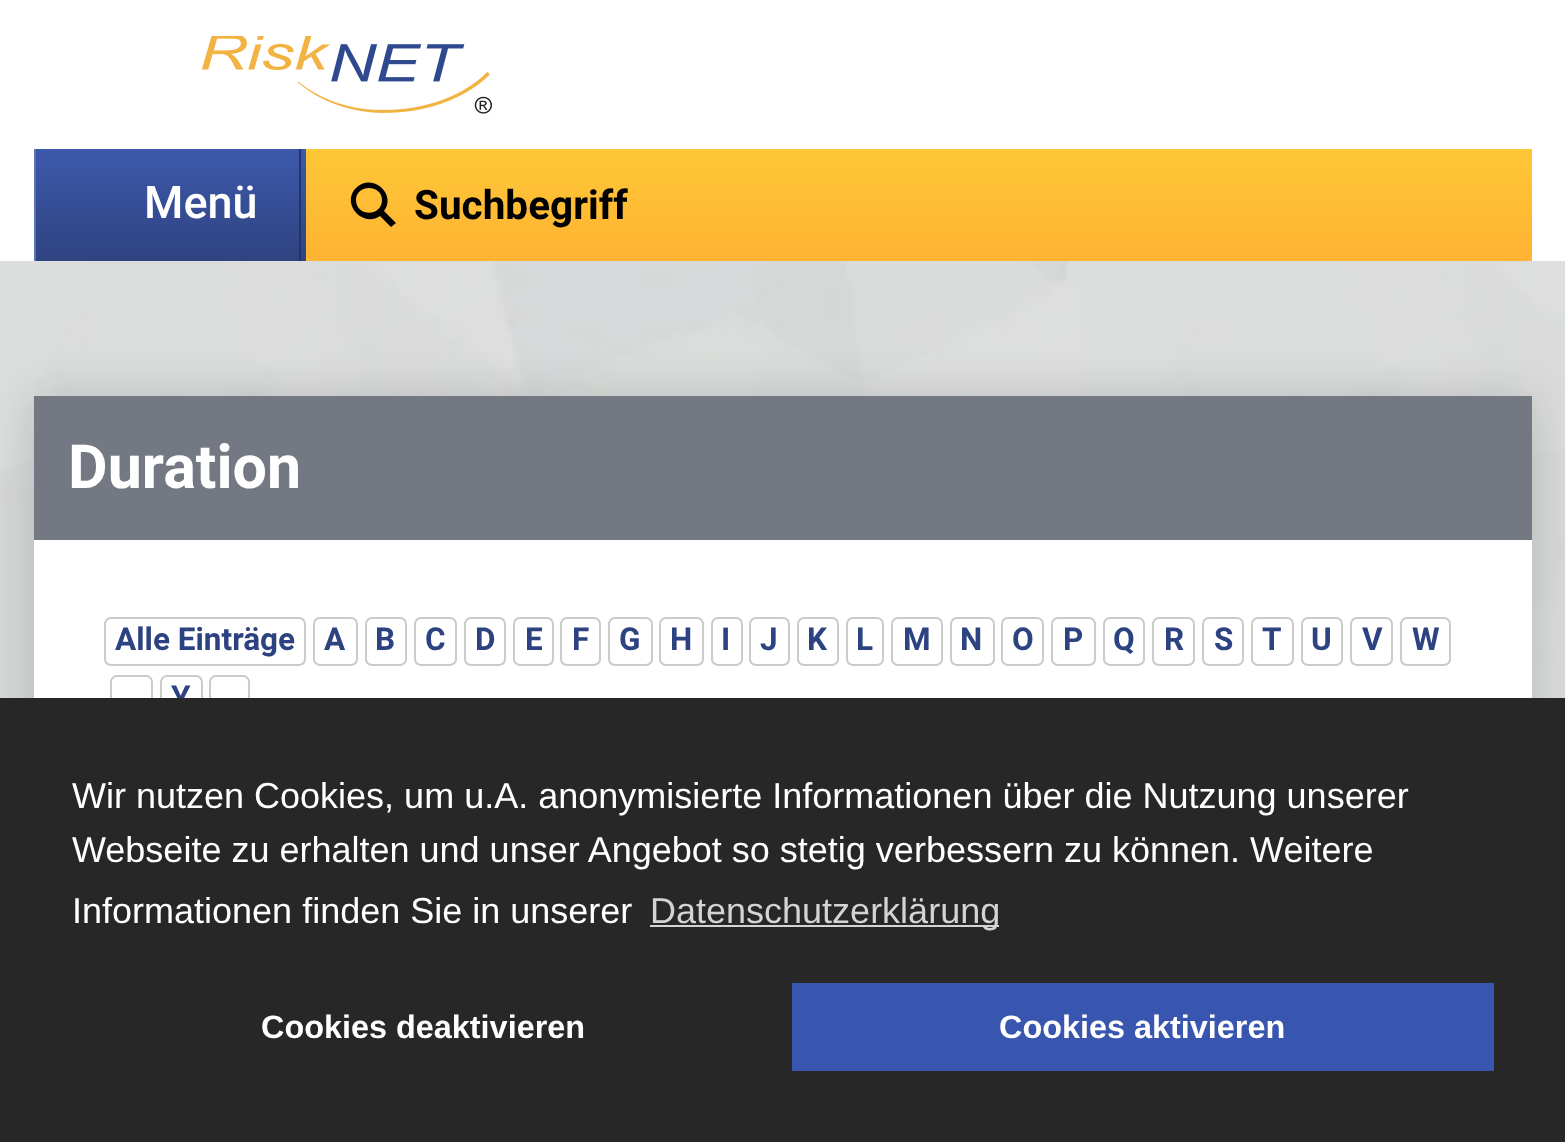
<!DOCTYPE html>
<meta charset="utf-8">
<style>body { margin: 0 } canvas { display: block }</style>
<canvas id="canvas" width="1565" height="1142"></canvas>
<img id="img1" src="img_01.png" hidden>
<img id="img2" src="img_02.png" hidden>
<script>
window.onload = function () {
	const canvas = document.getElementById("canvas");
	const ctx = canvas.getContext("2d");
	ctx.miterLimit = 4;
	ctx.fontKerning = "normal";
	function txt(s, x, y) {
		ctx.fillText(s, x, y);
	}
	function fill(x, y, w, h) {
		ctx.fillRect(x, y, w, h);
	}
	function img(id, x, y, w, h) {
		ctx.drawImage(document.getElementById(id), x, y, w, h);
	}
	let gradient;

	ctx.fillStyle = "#FFFFFF";
	fill(0, 0, 1565, 1142);
	img("img1", 0, 261, 1565, 437);
	img("img2", 201, 36, 291, 78);
	gradient = ctx.createLinearGradient(170, 149, 170, 261);
	gradient.addColorStop(0, "#3D59AC");
	gradient.addColorStop(1, "#2F4380");
	ctx.fillStyle = gradient;
	fill(36, 149, 270, 112);
	ctx.fillStyle = "#23346A";
	fill(299, 149, 2, 112);
	ctx.fillStyle = "#5C73B9";
	fill(34, 149, 2, 112);
	gradient = ctx.createLinearGradient(919, 148, 919, 261);
	gradient.addColorStop(0, "#FEC737");
	gradient.addColorStop(1, "#FFB333");
	ctx.fillStyle = gradient;
	fill(306, 149, 1226, 112);
	ctx.fillStyle = "#000000";
	ctx.beginPath();
	ctx.moveTo(396, 223);
	ctx.lineTo(384, 211);
	ctx.bezierCurveTo(397, 194, 372, 172, 356, 188);
	ctx.bezierCurveTo(341, 203, 362, 228, 380, 216);
	ctx.lineTo(391, 227);
	ctx.closePath();
	ctx.moveTo(356, 200);
	ctx.bezierCurveTo(356, 184, 382, 184, 382, 200);
	ctx.bezierCurveTo(382, 217, 356, 217, 356, 200);
	ctx.closePath();
	ctx.fill();
	ctx.fillStyle = "rgba(0, 0, 0, 0.15)";
	ctx.filter = "blur(22.5px)";
	ctx.beginPath();
	ctx.rect(34, 396, 1498, 725);
	ctx.fill();
	ctx.filter = "none";
	ctx.fillStyle = "#FFFFFF";
	fill(34, 540, 1498, 158);
	ctx.fillStyle = "#747882";
	fill(34, 396, 1498, 144);
	ctx.beginPath();
	ctx.roundRect(105, 618, 200, 47, 6);
	ctx.strokeStyle = "#CBCBCB";
	ctx.lineWidth = 2;
	ctx.stroke();
	ctx.beginPath();
	ctx.roundRect(314, 618, 43, 47, 6);
	ctx.stroke();
	ctx.beginPath();
	ctx.roundRect(366, 618, 40, 47, 6);
	ctx.stroke();
	ctx.beginPath();
	ctx.roundRect(415, 618, 41, 47, 6);
	ctx.stroke();
	ctx.beginPath();
	ctx.roundRect(465, 618, 40, 47, 6);
	ctx.stroke();
	ctx.beginPath();
	ctx.roundRect(514, 618, 39, 47, 6);
	ctx.stroke();
	ctx.beginPath();
	ctx.roundRect(561, 618, 39, 47, 6);
	ctx.stroke();
	ctx.beginPath();
	ctx.roundRect(609, 618, 43, 47, 6);
	ctx.stroke();
	ctx.beginPath();
	ctx.roundRect(660, 618, 43, 47, 6);
	ctx.stroke();
	ctx.beginPath();
	ctx.roundRect(712, 618, 30, 47, 6);
	ctx.stroke();
	ctx.beginPath();
	ctx.roundRect(750, 618, 39, 47, 6);
	ctx.stroke();
	ctx.beginPath();
	ctx.roundRect(798, 618, 40, 47, 6);
	ctx.stroke();
	ctx.beginPath();
	ctx.roundRect(847, 618, 36, 47, 6);
	ctx.stroke();
	ctx.beginPath();
	ctx.roundRect(892, 618, 50, 47, 6);
	ctx.stroke();
	ctx.beginPath();
	ctx.roundRect(951, 618, 43, 47, 6);
	ctx.stroke();
	ctx.beginPath();
	ctx.roundRect(1002, 618, 41, 47, 6);
	ctx.stroke();
	ctx.beginPath();
	ctx.roundRect(1052, 618, 43, 47, 6);
	ctx.stroke();
	ctx.beginPath();
	ctx.roundRect(1104, 618, 40, 47, 6);
	ctx.stroke();
	ctx.beginPath();
	ctx.roundRect(1153, 618, 41, 47, 6);
	ctx.stroke();
	ctx.beginPath();
	ctx.roundRect(1203, 618, 40, 47, 6);
	ctx.stroke();
	ctx.beginPath();
	ctx.roundRect(1252, 618, 41, 47, 6);
	ctx.stroke();
	ctx.beginPath();
	ctx.roundRect(1302, 618, 40, 47, 6);
	ctx.stroke();
	ctx.beginPath();
	ctx.roundRect(1351, 618, 41, 47, 6);
	ctx.stroke();
	ctx.beginPath();
	ctx.roundRect(1401, 618, 49, 47, 6);
	ctx.stroke();
	ctx.beginPath();
	ctx.roundRect(111, 676, 41, 45, 6);
	ctx.stroke();
	ctx.beginPath();
	ctx.roundRect(161, 676, 41, 45, 6);
	ctx.stroke();
	ctx.beginPath();
	ctx.roundRect(210, 676, 39, 45, 6);
	ctx.stroke();
	ctx.font = "500 45px Roboto";
	ctx.fillStyle = "#FFFFFF";
	txt("Menü", 144, 218);
	ctx.font = "bold 40.5px Roboto";
	ctx.fillStyle = "#000000";
	txt("Suchbegriff", 414, 219);
	ctx.font = "bold 61px Roboto";
	ctx.fillStyle = "#FFFFFF";
	txt("Duration", 68, 488);
	ctx.font = "bold 31.5px Roboto";
	ctx.fillStyle = "#2D4281";
	txt("Alle Einträge", 115, 650);
	txt("A", 324, 650);
	txt("B", 375, 650);
	txt("C", 425, 650);
	txt("D", 475, 650);
	txt("E", 525, 650);
	txt("F", 572, 650);
	txt("G", 619, 650);
	txt("H", 670, 650);
	txt("I", 721, 650);
	txt("J", 760, 650);
	txt("K", 807, 650);
	txt("L", 856, 650);
	txt("M", 903, 650);
	txt("N", 960, 650);
	txt("O", 1012, 650);
	txt("P", 1063, 650);
	txt("Q", 1113, 650);
	txt("R", 1164, 650);
	txt("S", 1214, 650);
	txt("T", 1262, 650);
	txt("U", 1311, 650);
	txt("V", 1362, 650);
	txt("W", 1412, 650);
	txt("Y", 171, 708);
	ctx.fillStyle = "#272727";
	fill(0, 698, 1565, 444);
	ctx.font = "36px Liberation Sans";
	ctx.fillStyle = "#FFFFFF";
	txt("Wir nutzen Cookies, um u.A. anonymisierte Informationen über die Nutzung unserer", 72, 808);
	txt("Webseite zu erhalten und unser Angebot so stetig verbessern zu können. Weitere", 72, 862);
	txt("Informationen finden Sie in unserer", 72, 923);
	ctx.fillStyle = "#D4D4D4";
	fill(650, 925, 349, 2);
	txt("Datenschutzerklärung", 650, 923);
	ctx.font = "bold 32.4px Liberation Sans";
	ctx.fillStyle = "#FFFFFF";
	txt("Cookies deaktivieren", 261, 1038);
	ctx.fillStyle = "#3856AF";
	fill(792, 983, 702, 88);
	ctx.fillStyle = "#FFFFFF";
	txt("Cookies aktivieren", 999, 1038);
};
</script>
